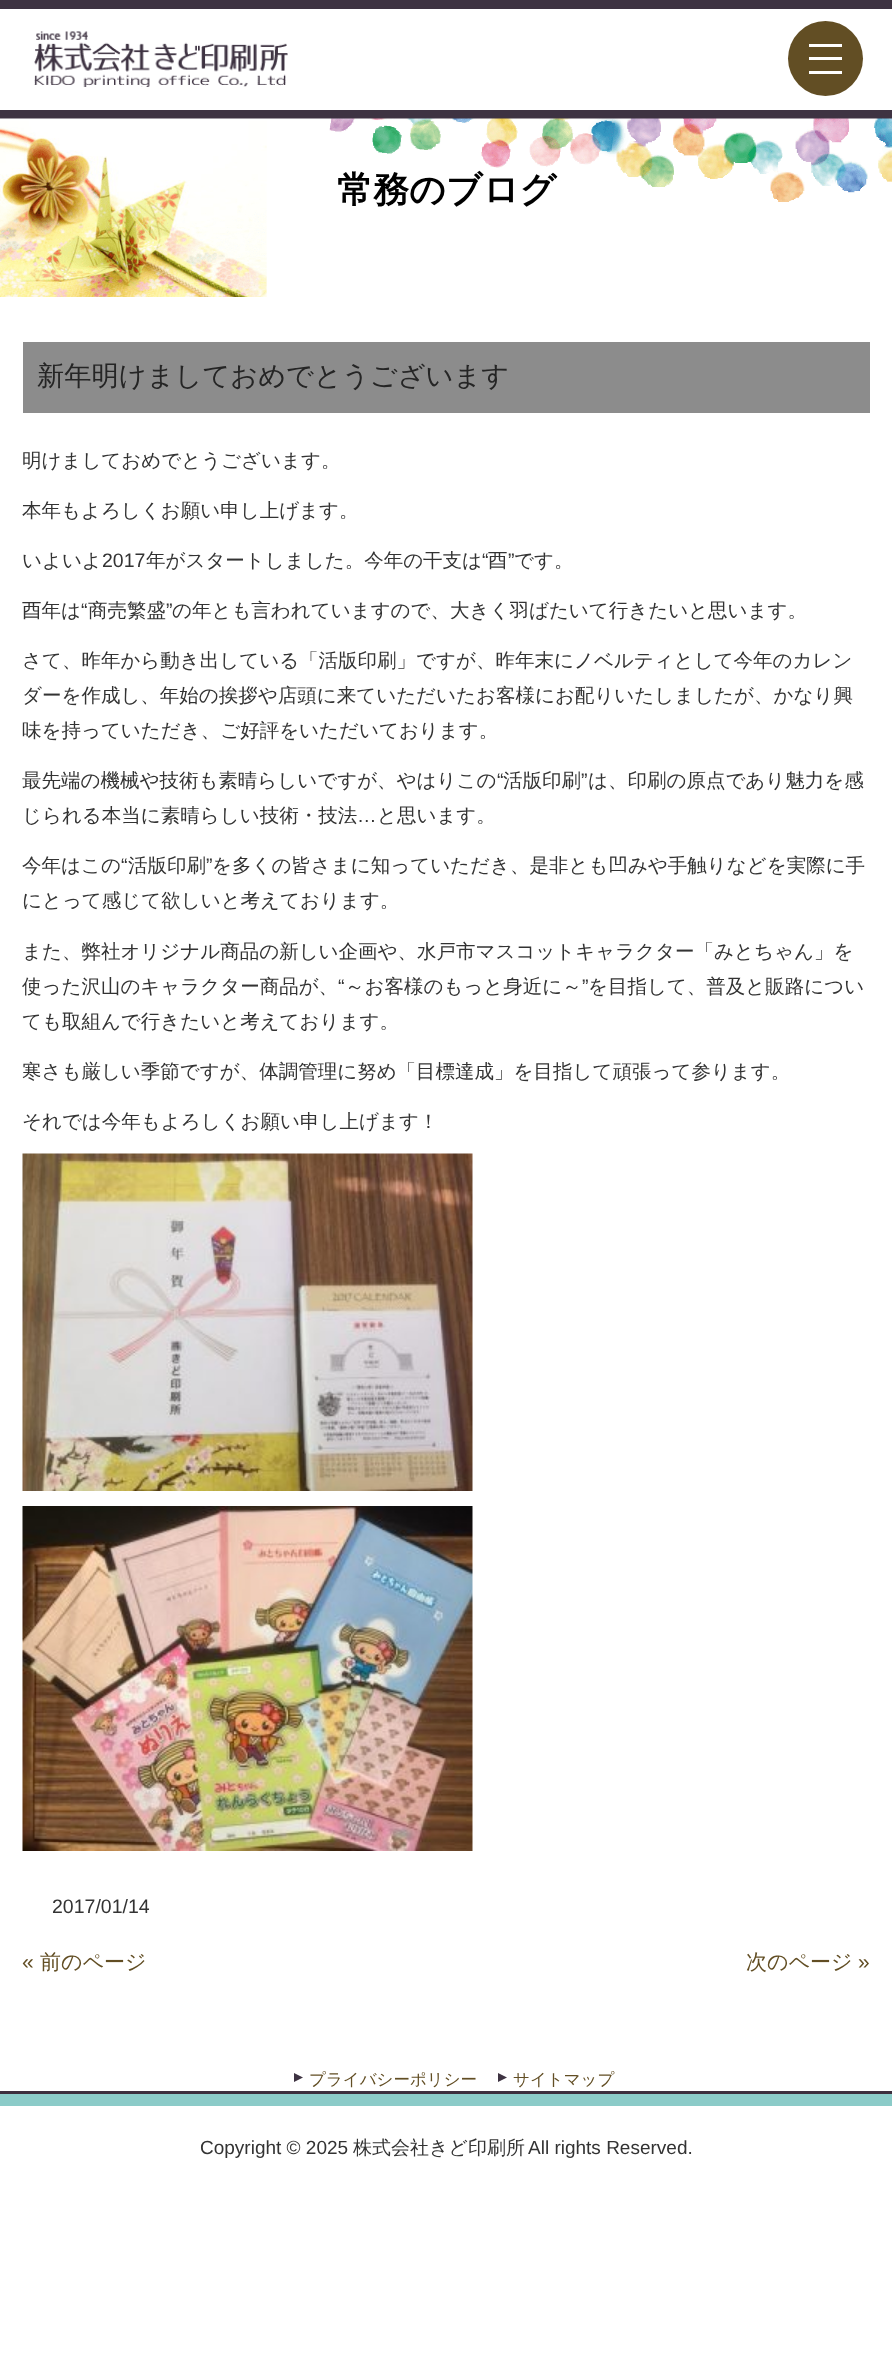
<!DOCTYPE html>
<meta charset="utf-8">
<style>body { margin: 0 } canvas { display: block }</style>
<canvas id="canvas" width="892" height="2354"></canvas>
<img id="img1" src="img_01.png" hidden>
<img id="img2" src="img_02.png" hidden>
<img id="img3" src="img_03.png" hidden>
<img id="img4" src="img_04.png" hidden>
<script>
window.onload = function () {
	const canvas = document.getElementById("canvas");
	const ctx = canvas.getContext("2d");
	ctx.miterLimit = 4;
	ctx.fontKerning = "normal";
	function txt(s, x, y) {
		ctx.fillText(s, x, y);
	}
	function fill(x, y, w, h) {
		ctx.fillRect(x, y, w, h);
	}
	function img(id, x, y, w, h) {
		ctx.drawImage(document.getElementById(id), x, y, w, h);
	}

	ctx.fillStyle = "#FFFFFF";
	fill(0, 0, 892, 2354);
	ctx.fillStyle = "#3E3342";
	fill(0, 0, 892, 9);
	fill(0, 110, 892, 9);
	img("img1", 34, 31, 254, 56);
	ctx.fillStyle = "#624E24";
	ctx.beginPath();
	ctx.arc(825.5, 58.5, 37.5, 0, Math.PI * 2);
	ctx.fill();
	ctx.fillStyle = "#FFFFFF";
	fill(809, 44, 33, 3);
	fill(809, 57, 33, 3);
	fill(809, 71, 33, 3);
	img("img2", 0, 118, 892, 179);
	ctx.fillStyle = "#8C8C8C";
	fill(23, 342, 847, 71);
	img("img3", 22, 1153, 451, 338);
	img("img4", 22, 1506, 451, 345);
	ctx.fillStyle = "#3C2E3D";
	fill(0, 2091, 892, 3);
	ctx.fillStyle = "#3E3342";
	ctx.beginPath();
	ctx.moveTo(294, 2082);
	ctx.lineTo(294, 2073);
	ctx.lineTo(303, 2077.5);
	ctx.closePath();
	ctx.fill();
	ctx.beginPath();
	ctx.moveTo(498, 2082);
	ctx.lineTo(498, 2073);
	ctx.lineTo(507, 2077.5);
	ctx.closePath();
	ctx.fill();
	ctx.fillStyle = "#8BCBC8";
	fill(0, 2094, 892, 12);
	ctx.font = "bold 36px WenQuanYi Zen Hei";
	ctx.fillStyle = "#000000";
	txt("常務のブログ", 337, 202);
	ctx.font = "500 27.25px WenQuanYi Zen Hei";
	ctx.fillStyle = "#252525";
	txt("新年明けましておめでとうございます", 37, 385);
	ctx.font = "500 19.5px WenQuanYi Zen Hei";
	ctx.fillStyle = "#333333";
	txt("明けましておめでとうございます。", 22, 467);
	txt("本年もよろしくお願い申し上げます。", 22, 517);
	txt("いよいよ", 22, 567);
	ctx.font = "19.5px Liberation Sans";
	txt("2017", 102, 567);
	ctx.font = "500 19.5px WenQuanYi Zen Hei";
	txt("年がスタートしました。今年の干支は", 146, 567);
	ctx.font = "19.5px Liberation Sans";
	txt("“", 482, 567);
	ctx.font = "500 19.5px WenQuanYi Zen Hei";
	txt("酉", 488, 567);
	ctx.font = "19.5px Liberation Sans";
	txt("”", 508, 567);
	ctx.font = "500 19.5px WenQuanYi Zen Hei";
	txt("です。", 514, 567);
	txt("酉年は", 22, 617);
	ctx.font = "19.5px Liberation Sans";
	txt("“", 81, 617);
	ctx.font = "500 19.5px WenQuanYi Zen Hei";
	txt("商売繁盛", 88, 617);
	ctx.font = "19.5px Liberation Sans";
	txt("”", 166, 617);
	ctx.font = "500 19.5px WenQuanYi Zen Hei";
	txt("の年とも言われていますので、大きく羽ばたいて行きたいと思います。", 172, 617);
	txt("さて、昨年から動き出している「活版印刷」ですが、昨年末にノベルティとして今年のカレン", 22, 667);
	txt("ダーを作成し、年始の挨拶や店頭に来ていただいたお客様にお配りいたしましたが、かなり興", 22, 702);
	txt("味を持っていただき、ご好評をいただいております。", 22, 737);
	txt("最先端の機械や技術も素晴らしいですが、やはりこの", 22, 787);
	ctx.font = "19.5px Liberation Sans";
	txt("“", 497, 787);
	ctx.font = "500 19.5px WenQuanYi Zen Hei";
	txt("活版印刷", 503, 787);
	ctx.font = "19.5px Liberation Sans";
	txt("”", 581, 787);
	ctx.font = "500 19.5px WenQuanYi Zen Hei";
	txt("は、印刷の原点であり魅力を感", 588, 787);
	txt("じられる本当に素晴らしい技術・技法", 22, 822);
	ctx.font = "19.5px Liberation Sans";
	txt("…", 357, 822);
	ctx.font = "500 19.5px WenQuanYi Zen Hei";
	txt("と思います。", 377, 822);
	txt("今年はこの", 22, 872);
	ctx.font = "19.5px Liberation Sans";
	txt("“", 121, 872);
	ctx.font = "500 19.5px WenQuanYi Zen Hei";
	txt("活版印刷", 128, 872);
	ctx.font = "19.5px Liberation Sans";
	txt("”", 206, 872);
	ctx.font = "500 19.5px WenQuanYi Zen Hei";
	txt("を多くの皆さまに知っていただき、是非とも凹みや手触りなどを実際に手", 212, 872);
	txt("にとって感じて欲しいと考えております。", 22, 907);
	txt("また、弊社オリジナル商品の新しい企画や、水戸市マスコットキャラクター「みとちゃん」を", 22, 958);
	txt("使った沢山のキャラクター商品が、", 22, 993);
	ctx.font = "19.5px Liberation Sans";
	txt("“", 338, 993);
	ctx.font = "500 19.5px WenQuanYi Zen Hei";
	txt("～お客様のもっと身近に～", 345, 993);
	ctx.font = "19.5px Liberation Sans";
	txt("”", 582, 993);
	ctx.font = "500 19.5px WenQuanYi Zen Hei";
	txt("を目指して、普及と販路につい", 588, 993);
	txt("ても取組んで行きたいと考えております。", 22, 1028);
	txt("寒さも厳しい季節ですが、体調管理に努め「目標達成」を目指して頑張って参ります。", 22, 1078);
	txt("それでは今年もよろしくお願い申し上げます！", 22, 1128);
	ctx.font = "19.5px Liberation Sans";
	txt("2017/01/14", 52, 1913);
	ctx.font = "21px Liberation Sans";
	ctx.fillStyle = "#624E24";
	txt("«", 22, 1969);
	ctx.font = "500 21px WenQuanYi Zen Hei";
	txt("前のページ", 40, 1969);
	txt("次のページ", 746, 1969);
	ctx.font = "21px Liberation Sans";
	txt("»", 858, 1969);
	ctx.font = "500 16.5px WenQuanYi Zen Hei";
	txt("プライバシーポリシー", 309, 2085);
	txt("サイトマップ", 513, 2085);
	ctx.font = "19px Liberation Sans";
	ctx.fillStyle = "#333333";
	txt("Copyright © 2025", 200, 2154);
	ctx.font = "500 19px WenQuanYi Zen Hei";
	txt("株式会社きど印刷所", 353, 2154);
	ctx.font = "19px Liberation Sans";
	txt("All rights Reserved.", 528, 2154);
};
</script>
